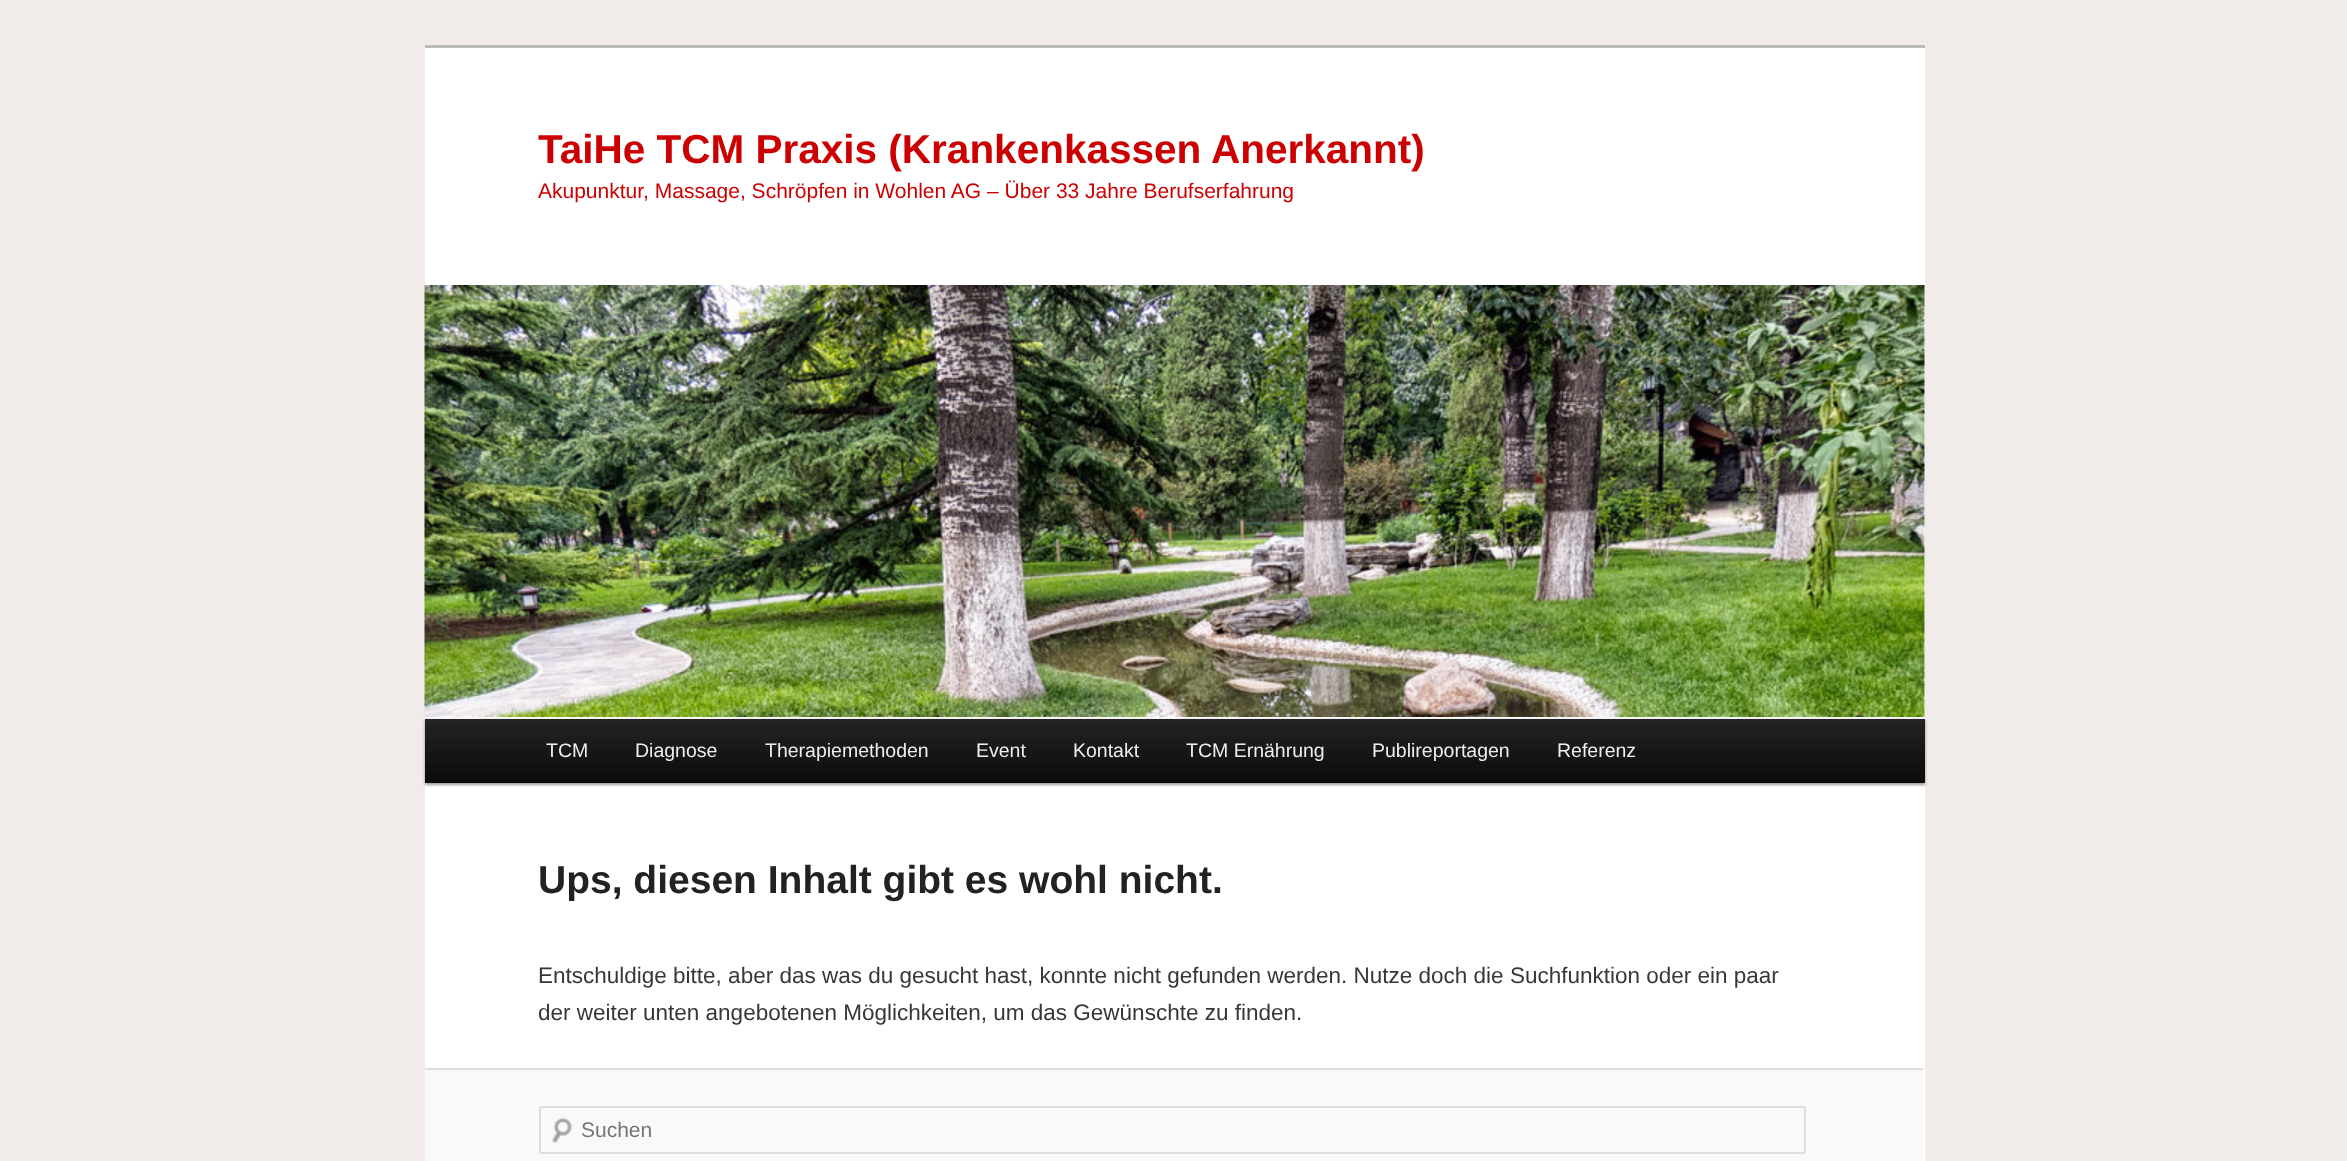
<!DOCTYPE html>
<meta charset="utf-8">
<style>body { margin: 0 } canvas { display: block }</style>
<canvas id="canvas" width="2347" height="1161"></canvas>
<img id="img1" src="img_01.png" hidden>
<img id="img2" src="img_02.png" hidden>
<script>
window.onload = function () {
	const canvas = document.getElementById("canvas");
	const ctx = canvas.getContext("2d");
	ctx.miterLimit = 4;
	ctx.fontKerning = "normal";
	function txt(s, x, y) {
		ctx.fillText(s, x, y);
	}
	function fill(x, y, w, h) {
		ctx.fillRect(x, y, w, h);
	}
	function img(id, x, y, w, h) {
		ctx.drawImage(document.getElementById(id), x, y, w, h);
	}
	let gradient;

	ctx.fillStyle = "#F1EBEA";
	fill(0, 0, 2347, 1161);
	ctx.fillStyle = "#FFFFFF";
	fill(425, 48, 1500, 1113);
	ctx.fillStyle = "#BBBBBB";
	fill(425, 45, 1500, 3);
	ctx.fillStyle = "rgba(0, 0, 0, 0.4)";
	ctx.filter = "blur(1.5px)";
	ctx.beginPath();
	ctx.rect(425, 720, 1500, 65);
	ctx.fill();
	ctx.filter = "none";
	img("img1", 424, 285, 1501, 432);
	gradient = ctx.createLinearGradient(1175, 718, 1175, 783);
	gradient.addColorStop(0, "#252525");
	gradient.addColorStop(1, "#0A0A0A");
	ctx.fillStyle = gradient;
	fill(425, 719, 1500, 64);
	ctx.fillStyle = "#F9F9F9";
	fill(425, 1070, 1498, 91);
	ctx.fillStyle = "#DDDDDD";
	fill(425, 1068, 1498, 2);
	img("img2", 552, 1117, 20, 27);
	ctx.beginPath();
	ctx.roundRect(540, 1107, 1265, 46, 2);
	ctx.strokeStyle = "#DDDDDD";
	ctx.lineWidth = 2;
	ctx.stroke();
	ctx.font = "bold 40.5px Liberation Sans";
	ctx.fillStyle = "#CC0000";
	txt("TaiHe TCM Praxis (Krankenkassen Anerkannt)", 538, 163);
	ctx.font = "21px Liberation Sans";
	txt("Akupunktur, Massage, Schröpfen in Wohlen AG – Über 33 Jahre Berufserfahrung", 538, 198);
	ctx.font = "19.5px Liberation Sans";
	ctx.fillStyle = "#EEEEEE";
	txt("TCM", 546, 757);
	txt("Diagnose", 635, 757);
	txt("Therapiemethoden", 765, 757);
	txt("Event", 976, 757);
	txt("Kontakt", 1073, 757);
	txt("TCM Ernährung", 1186, 757);
	txt("Publireportagen", 1372, 757);
	txt("Referenz", 1557, 757);
	ctx.font = "bold 39px Liberation Sans";
	ctx.fillStyle = "#222222";
	txt("Ups, diesen Inhalt gibt es wohl nicht.", 538, 893);
	ctx.font = "22.5px Liberation Sans";
	ctx.fillStyle = "#373737";
	txt("Entschuldige bitte, aber das was du gesucht hast, konnte nicht gefunden werden. Nutze doch die Suchfunktion oder ein paar", 538, 983);
	txt("der weiter unten angebotenen Möglichkeiten, um das Gewünschte zu finden.", 538, 1020);
	ctx.font = "21px Liberation Sans";
	ctx.fillStyle = "#757575";
	txt("Suchen", 581, 1137);
};
</script>
